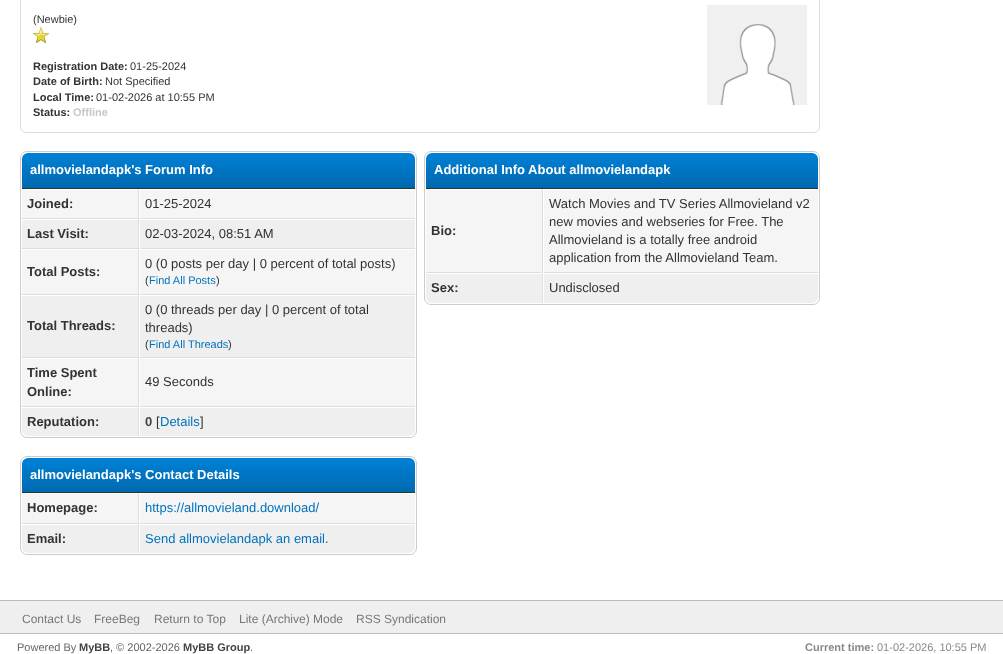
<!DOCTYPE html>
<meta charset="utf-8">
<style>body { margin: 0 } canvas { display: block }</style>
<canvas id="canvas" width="1003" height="654"></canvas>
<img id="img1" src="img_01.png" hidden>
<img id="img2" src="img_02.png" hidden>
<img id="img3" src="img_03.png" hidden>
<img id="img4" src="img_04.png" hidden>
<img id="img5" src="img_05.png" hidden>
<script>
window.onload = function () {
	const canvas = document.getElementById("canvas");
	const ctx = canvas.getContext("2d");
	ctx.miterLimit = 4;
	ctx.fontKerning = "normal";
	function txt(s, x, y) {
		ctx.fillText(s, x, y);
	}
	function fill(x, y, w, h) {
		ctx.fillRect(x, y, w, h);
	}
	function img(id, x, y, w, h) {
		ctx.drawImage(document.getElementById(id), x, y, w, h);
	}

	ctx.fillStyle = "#FFFFFF";
	fill(0, 0, 1003, 654);
	ctx.beginPath();
	ctx.roundRect(20.5, -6.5, 799, 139, 5.5);
	ctx.strokeStyle = "#DDDDDD";
	ctx.stroke();
	img("img1", 33, 27, 16, 16);
	img("img2", 707, 5, 100, 100);
	ctx.beginPath();
	ctx.roundRect(20.5, 151.5, 396, 286, 6.5);
	ctx.strokeStyle = "#CCCCCC";
	ctx.stroke();
	img("img3", 22, 153, 393, 35);
	ctx.fillStyle = "#263C30";
	fill(22, 188, 393, 1);
	ctx.fillStyle = "#F5F5F5";
	fill(22, 190, 116, 28);
	ctx.fillStyle = "#DDDDDD";
	fill(138, 189, 1, 218);
	fill(22, 218, 393, 1);
	ctx.fillStyle = "#F5F5F5";
	fill(140, 190, 275, 28);
	ctx.fillStyle = "#FFFFFF";
	fill(139, 218, 1, 1);
	ctx.fillStyle = "#EFEFEF";
	fill(22, 220, 116, 28);
	ctx.fillStyle = "#DDDDDD";
	fill(22, 248, 393, 1);
	ctx.fillStyle = "#EFEFEF";
	fill(140, 220, 275, 28);
	ctx.fillStyle = "#FFFFFF";
	fill(139, 248, 1, 1);
	ctx.fillStyle = "#F5F5F5";
	fill(22, 250, 116, 44);
	ctx.fillStyle = "#DDDDDD";
	fill(22, 294, 393, 1);
	ctx.fillStyle = "#F5F5F5";
	fill(140, 250, 275, 44);
	ctx.fillStyle = "#FFFFFF";
	fill(139, 294, 1, 1);
	ctx.fillStyle = "#EFEFEF";
	fill(22, 296, 116, 61);
	ctx.fillStyle = "#DDDDDD";
	fill(22, 357, 393, 1);
	ctx.fillStyle = "#EFEFEF";
	fill(140, 296, 275, 61);
	ctx.fillStyle = "#FFFFFF";
	fill(139, 357, 1, 1);
	ctx.fillStyle = "#F5F5F5";
	fill(22, 359, 116, 47);
	ctx.fillStyle = "#DDDDDD";
	fill(22, 406, 393, 1);
	ctx.fillStyle = "#F5F5F5";
	fill(140, 359, 275, 47);
	ctx.fillStyle = "#FFFFFF";
	fill(139, 406, 1, 1);
	ctx.fillStyle = "#EFEFEF";
	ctx.beginPath();
	ctx.roundRect(22, 407, 117, 29, [0, 0, 0, 6]);
	ctx.fill();
	ctx.fillStyle = "#FFFFFF";
	ctx.beginPath();
	ctx.moveTo(22, 407);
	ctx.lineTo(22, 408);
	ctx.lineTo(138, 408);
	ctx.lineTo(139, 407);
	ctx.closePath();
	ctx.fill();
	ctx.fillStyle = "#DDDDDD";
	ctx.beginPath();
	ctx.moveTo(139, 407);
	ctx.lineTo(138, 408);
	ctx.lineTo(138, 436);
	ctx.lineTo(139, 436);
	ctx.closePath();
	ctx.fill();
	ctx.fillStyle = "#EFEFEF";
	ctx.beginPath();
	ctx.roundRect(139, 407, 276, 29, [0, 0, 6, 0]);
	ctx.fill();
	ctx.fillStyle = "#FFFFFF";
	fill(139, 407, 276, 1);
	fill(139, 407, 1, 29);
	ctx.beginPath();
	ctx.roundRect(20.5, 456.5, 396, 98, 6.5);
	ctx.stroke();
	img("img4", 22, 458, 393, 34);
	ctx.fillStyle = "#263C30";
	fill(22, 492, 393, 1);
	ctx.fillStyle = "#F5F5F5";
	fill(22, 494, 116, 29);
	ctx.fillStyle = "#DDDDDD";
	fill(138, 493, 1, 31);
	fill(22, 523, 393, 1);
	ctx.fillStyle = "#F5F5F5";
	fill(140, 494, 275, 29);
	ctx.fillStyle = "#FFFFFF";
	fill(139, 523, 1, 1);
	ctx.fillStyle = "#EFEFEF";
	ctx.beginPath();
	ctx.roundRect(22, 524, 117, 29, [0, 0, 0, 6]);
	ctx.fill();
	ctx.fillStyle = "#FFFFFF";
	ctx.beginPath();
	ctx.moveTo(22, 524);
	ctx.lineTo(22, 525);
	ctx.lineTo(138, 525);
	ctx.lineTo(139, 524);
	ctx.closePath();
	ctx.fill();
	ctx.fillStyle = "#DDDDDD";
	ctx.beginPath();
	ctx.moveTo(139, 524);
	ctx.lineTo(138, 525);
	ctx.lineTo(138, 553);
	ctx.lineTo(139, 553);
	ctx.closePath();
	ctx.fill();
	ctx.fillStyle = "#EFEFEF";
	ctx.beginPath();
	ctx.roundRect(139, 524, 276, 29, [0, 0, 6, 0]);
	ctx.fill();
	ctx.fillStyle = "#FFFFFF";
	fill(139, 524, 276, 1);
	fill(139, 524, 1, 29);
	ctx.beginPath();
	ctx.roundRect(424.5, 151.5, 395, 153, 6.5);
	ctx.stroke();
	img("img5", 426, 153, 392, 35);
	ctx.fillStyle = "#263C30";
	fill(426, 188, 392, 1);
	ctx.fillStyle = "#F5F5F5";
	fill(426, 190, 116, 82);
	ctx.fillStyle = "#DDDDDD";
	fill(542, 189, 1, 84);
	fill(426, 272, 392, 1);
	ctx.fillStyle = "#F5F5F5";
	fill(544, 190, 274, 82);
	ctx.fillStyle = "#FFFFFF";
	fill(543, 272, 1, 1);
	ctx.fillStyle = "#EFEFEF";
	ctx.beginPath();
	ctx.roundRect(426, 273, 117, 30, [0, 0, 0, 6]);
	ctx.fill();
	ctx.fillStyle = "#FFFFFF";
	ctx.beginPath();
	ctx.moveTo(426, 273);
	ctx.lineTo(426, 274);
	ctx.lineTo(542, 274);
	ctx.lineTo(543, 273);
	ctx.closePath();
	ctx.fill();
	ctx.fillStyle = "#DDDDDD";
	ctx.beginPath();
	ctx.moveTo(543, 273);
	ctx.lineTo(542, 274);
	ctx.lineTo(542, 303);
	ctx.lineTo(543, 303);
	ctx.closePath();
	ctx.fill();
	ctx.fillStyle = "#EFEFEF";
	ctx.beginPath();
	ctx.roundRect(543, 273, 275, 30, [0, 0, 6, 0]);
	ctx.fill();
	ctx.fillStyle = "#FFFFFF";
	fill(543, 273, 275, 1);
	fill(543, 273, 1, 30);
	ctx.fillStyle = "#EFEFEF";
	fill(0, 601, 1003, 32);
	ctx.fillStyle = "#BBBBBB";
	fill(0, 600, 1003, 1);
	fill(0, 633, 1003, 1);
	ctx.font = "11px Liberation Sans";
	ctx.fillStyle = "#333333";
	txt("(Newbie)", 33, 23);
	ctx.font = "bold 11px Liberation Sans";
	txt("Registration Date:", 33, 70);
	ctx.font = "11px Liberation Sans";
	txt("01-25-2024", 130, 70);
	ctx.font = "bold 11px Liberation Sans";
	txt("Date of Birth:", 33, 85);
	ctx.font = "11px Liberation Sans";
	txt("Not Specified", 105, 85);
	ctx.font = "bold 11px Liberation Sans";
	txt("Local Time:", 33, 101);
	ctx.font = "11px Liberation Sans";
	txt("01-02-2026 at 10:55 PM", 96, 101);
	ctx.font = "bold 11px Liberation Sans";
	txt("Status:", 33, 116);
	ctx.fillStyle = "#C7C7C7";
	txt("Offline", 73, 116);
	ctx.font = "bold 13px Liberation Sans";
	ctx.fillStyle = "#FFFFFF";
	txt("allmovielandapk's Forum Info", 30, 174);
	ctx.fillStyle = "#333333";
	txt("Joined:", 27, 208);
	ctx.font = "13px Liberation Sans";
	txt("01-25-2024", 145, 208);
	ctx.font = "bold 13px Liberation Sans";
	txt("Last Visit:", 27, 238);
	ctx.font = "13px Liberation Sans";
	txt("02-03-2024, 08:51 AM", 145, 238);
	ctx.font = "bold 13px Liberation Sans";
	txt("Total Posts:", 27, 276);
	ctx.font = "13px Liberation Sans";
	txt("0 (0 posts per day | 0 percent of total posts)", 145, 268);
	ctx.font = "11px Liberation Sans";
	txt("(", 145, 284);
	ctx.fillStyle = "#0072BC";
	txt("Find All Posts", 149, 284);
	ctx.fillStyle = "#333333";
	txt(")", 216, 284);
	ctx.font = "bold 13px Liberation Sans";
	txt("Total Threads:", 27, 330);
	ctx.font = "13px Liberation Sans";
	txt("0 (0 threads per day | 0 percent of total", 145, 314);
	txt("threads)", 145, 332);
	ctx.font = "11px Liberation Sans";
	txt("(", 145, 348);
	ctx.fillStyle = "#0072BC";
	txt("Find All Threads", 149, 348);
	ctx.fillStyle = "#333333";
	txt(")", 228, 348);
	ctx.font = "bold 13px Liberation Sans";
	txt("Time Spent", 27, 377);
	txt("Online:", 27, 396);
	ctx.font = "13px Liberation Sans";
	txt("49 Seconds", 145, 386);
	ctx.font = "bold 13px Liberation Sans";
	txt("Reputation:", 27, 426);
	ctx.fillStyle = "#444444";
	txt("0", 145, 426);
	ctx.font = "13px Liberation Sans";
	ctx.fillStyle = "#333333";
	txt("[", 156, 426);
	ctx.fillStyle = "#0072BC";
	txt("Details", 160, 426);
	ctx.fillStyle = "#333333";
	txt("]", 200, 426);
	ctx.font = "bold 13px Liberation Sans";
	ctx.fillStyle = "#FFFFFF";
	txt("allmovielandapk's Contact Details", 30, 479);
	ctx.fillStyle = "#333333";
	txt("Homepage:", 27, 512);
	ctx.font = "13px Liberation Sans";
	ctx.fillStyle = "#0072BC";
	txt("https://allmovieland.download/", 145, 512);
	ctx.font = "bold 13px Liberation Sans";
	ctx.fillStyle = "#333333";
	txt("Email:", 27, 543);
	ctx.font = "13px Liberation Sans";
	ctx.fillStyle = "#0072BC";
	txt("Send allmovielandapk an email.", 145, 543);
	ctx.font = "bold 13px Liberation Sans";
	ctx.fillStyle = "#FFFFFF";
	txt("Additional Info About allmovielandapk", 434, 174);
	ctx.fillStyle = "#333333";
	txt("Bio:", 431, 235);
	ctx.font = "13px Liberation Sans";
	txt("Watch Movies and TV Series Allmovieland v2", 549, 208);
	txt("new movies and webseries for Free. The", 549, 226);
	txt("Allmovieland is a totally free android", 549, 244);
	txt("application from the Allmovieland Team.", 549, 262);
	ctx.font = "bold 13px Liberation Sans";
	txt("Sex:", 431, 292);
	ctx.font = "13px Liberation Sans";
	txt("Undisclosed", 549, 292);
	ctx.font = "12px Liberation Sans";
	ctx.fillStyle = "#777777";
	txt("Contact Us", 22, 623);
	txt("FreeBeg", 94, 623);
	txt("Return to Top", 154, 623);
	txt("Lite (Archive) Mode", 239, 623);
	txt("RSS Syndication", 356, 623);
	ctx.font = "11px Liberation Sans";
	ctx.fillStyle = "#666666";
	txt("Powered By", 17, 651);
	ctx.font = "bold 11px Liberation Sans";
	ctx.fillStyle = "#444444";
	txt("MyBB", 79, 651);
	ctx.font = "11px Liberation Sans";
	ctx.fillStyle = "#666666";
	txt(", © 2002-2026", 110, 651);
	ctx.font = "bold 11px Liberation Sans";
	ctx.fillStyle = "#444444";
	txt("MyBB Group", 183, 651);
	ctx.font = "11px Liberation Sans";
	ctx.fillStyle = "#666666";
	txt(".", 250, 651);
	ctx.font = "bold 11px Liberation Sans";
	ctx.fillStyle = "#888888";
	txt("Current time:", 805, 651);
	ctx.font = "11px Liberation Sans";
	txt("01-02-2026, 10:55 PM", 877, 651);
};
</script>
